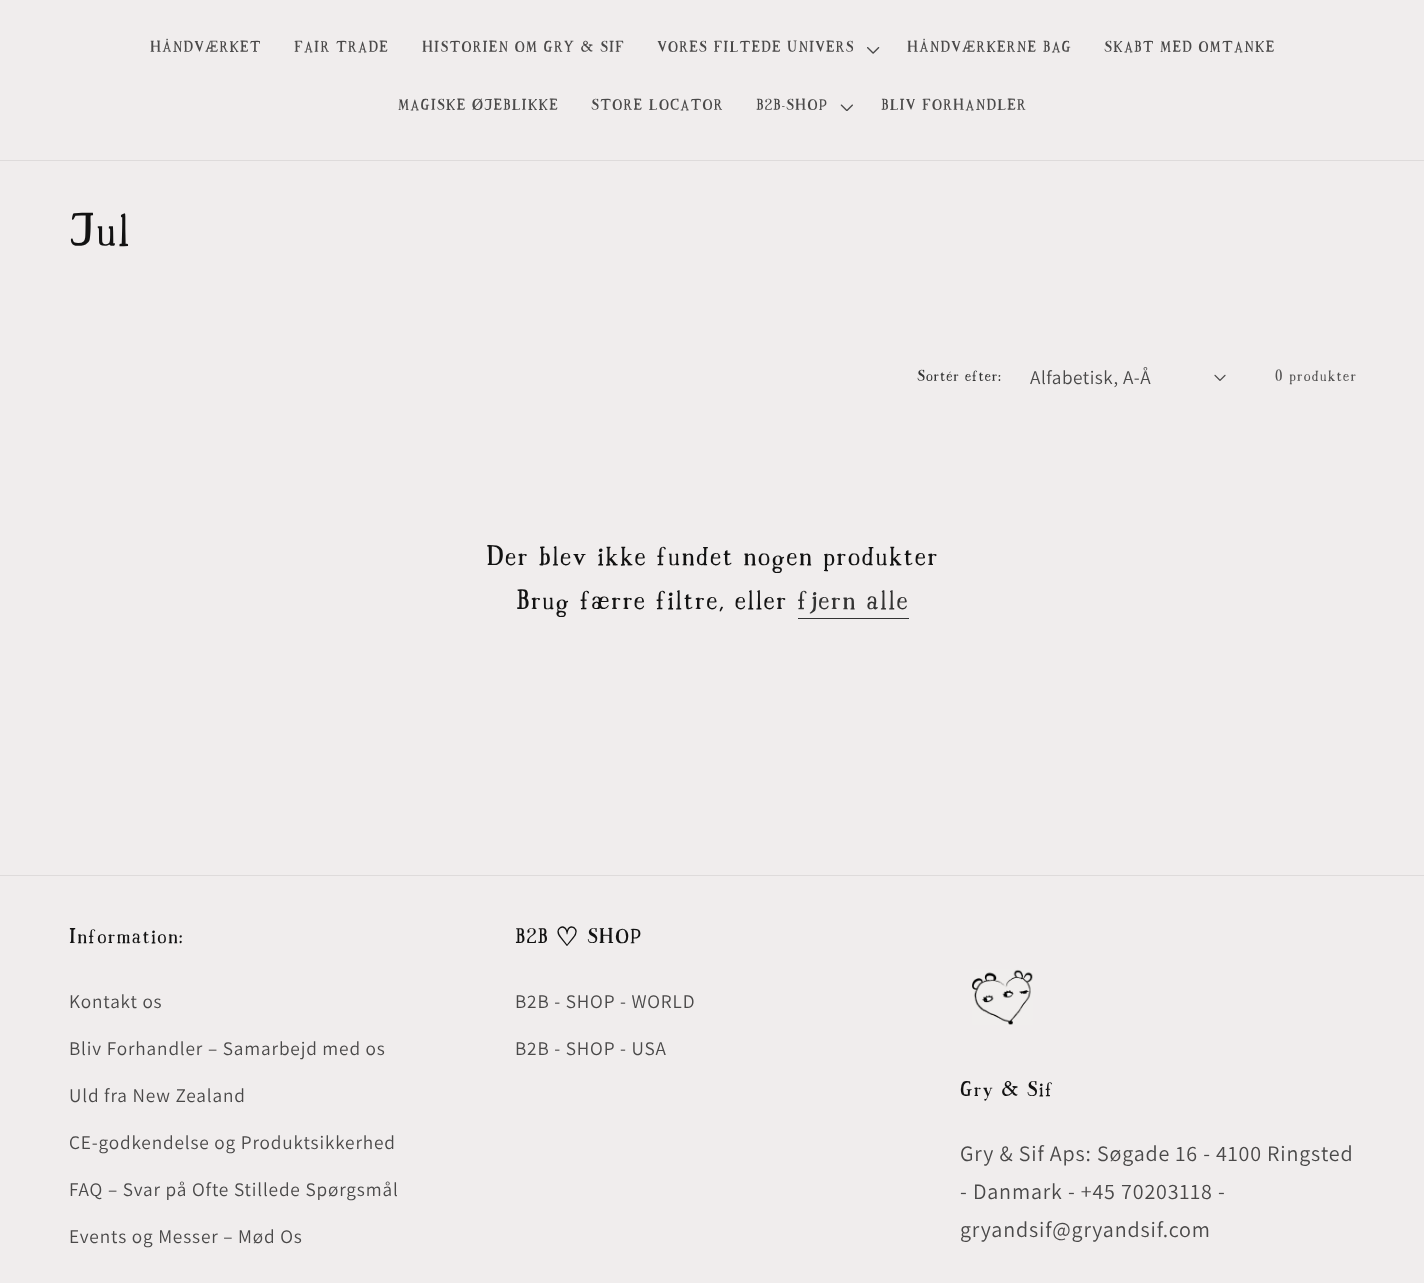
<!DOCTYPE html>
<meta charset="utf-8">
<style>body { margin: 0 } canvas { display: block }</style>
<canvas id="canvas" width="1424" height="1283"></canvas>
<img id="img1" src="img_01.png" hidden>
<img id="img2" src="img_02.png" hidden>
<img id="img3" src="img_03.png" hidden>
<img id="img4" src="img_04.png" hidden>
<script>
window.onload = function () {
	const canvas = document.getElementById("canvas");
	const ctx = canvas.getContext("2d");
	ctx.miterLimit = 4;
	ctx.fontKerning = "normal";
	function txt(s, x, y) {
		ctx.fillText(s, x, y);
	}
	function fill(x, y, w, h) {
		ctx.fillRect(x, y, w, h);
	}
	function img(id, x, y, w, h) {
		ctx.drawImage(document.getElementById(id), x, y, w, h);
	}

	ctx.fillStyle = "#F0EDED";
	fill(0, 0, 1424, 1283);
	ctx.fillStyle = "#DEDBDB";
	fill(0, 160, 1424, 1);
	img("img1", 867, 47, 13, 7);
	img("img2", 840, 104, 13, 7);
	img("img3", 1214, 374, 12, 7);
	ctx.fillStyle = "#333333";
	fill(798, 618, 111, 1);
	ctx.fillStyle = "#DEDBDB";
	fill(0, 875, 1424, 1);
	img("img4", 972, 969, 61, 56);
	ctx.letterSpacing = "0.85px";
	ctx.font = "19.25px 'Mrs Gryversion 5'";
	ctx.fillStyle = "#4A4949";
	txt("HÅNDVÆRKET", 150, 54);
	txt("FAIR TRADE", 294, 54);
	txt("HISTORIEN OM GRY & SIF", 422, 54);
	txt("VORES FILTEDE UNIVERS", 657, 54);
	txt("HÅNDVÆRKERNE BAG", 907, 54);
	txt("SKABT MED OMTANKE", 1104, 54);
	txt("MAGISKE ØJEBLIKKE", 398, 112);
	txt("STORE LOCATOR", 591, 112);
	txt("B2B-SHOP", 756, 112);
	txt("BLIV FORHANDLER", 881, 112);
	ctx.font = "58px 'Mrs Gryversion 5'";
	ctx.fillStyle = "#121212";
	txt("Jul", 69, 252);
	ctx.letterSpacing = "0.5px";
	ctx.font = "19.25px 'Mrs Gryversion 5'";
	ctx.fillStyle = "#333333";
	txt("Sortér efter:", 917, 383);
	ctx.font = "19.25px Assistant";
	ctx.fillStyle = "#4A4949";
	txt("Alfabetisk, A-Å", 1030, 384);
	ctx.letterSpacing = "0.85px";
	ctx.font = "19.25px 'Mrs Gryversion 5'";
	ctx.fillStyle = "#555454";
	txt("0 produkter", 1275, 383);
	ctx.font = "34.5px 'Mrs Gryversion 5'";
	ctx.fillStyle = "#121212";
	txt("Der blev ikke fundet nogen produkter", 486, 569);
	txt("Brug færre filtre, eller", 516, 613);
	ctx.fillStyle = "#333333";
	txt("fjern alle", 797, 613);
	ctx.font = "26px 'Mrs Gryversion 5'";
	ctx.fillStyle = "#121212";
	txt("Information:", 69, 946);
	ctx.font = "19.25px Assistant";
	ctx.fillStyle = "#4A4949";
	txt("Kontakt os", 69, 1008);
	txt("Bliv Forhandler – Samarbejd med os", 69, 1055);
	txt("Uld fra New Zealand", 69, 1102);
	txt("CE-godkendelse og Produktsikkerhed", 69, 1149);
	txt("FAQ – Svar på Ofte Stillede Spørgsmål", 69, 1196);
	txt("Events og Messer – Mød Os", 69, 1243);
	ctx.font = "26px 'Mrs Gryversion 5'";
	ctx.fillStyle = "#121212";
	txt("B2B", 515, 946);
	ctx.font = "bold 26px DejaVu Sans";
	txt("♡", 555, 946);
	ctx.font = "26px 'Mrs Gryversion 5'";
	txt("SHOP", 587, 946);
	ctx.font = "19.25px Assistant";
	ctx.fillStyle = "#4A4949";
	txt("B2B - SHOP - WORLD", 515, 1008);
	txt("B2B - SHOP - USA", 515, 1055);
	ctx.font = "26px 'Mrs Gryversion 5'";
	ctx.fillStyle = "#121212";
	txt("Gry & Sif", 960, 1099);
	ctx.font = "22px Assistant";
	ctx.fillStyle = "#4A4949";
	txt("Gry & Sif Aps: Søgade 16 - 4100 Ringsted", 960, 1161);
	txt("- Danmark - +45 70203118 -", 960, 1199);
	txt("gryandsif@gryandsif.com", 960, 1237);
};
</script>
